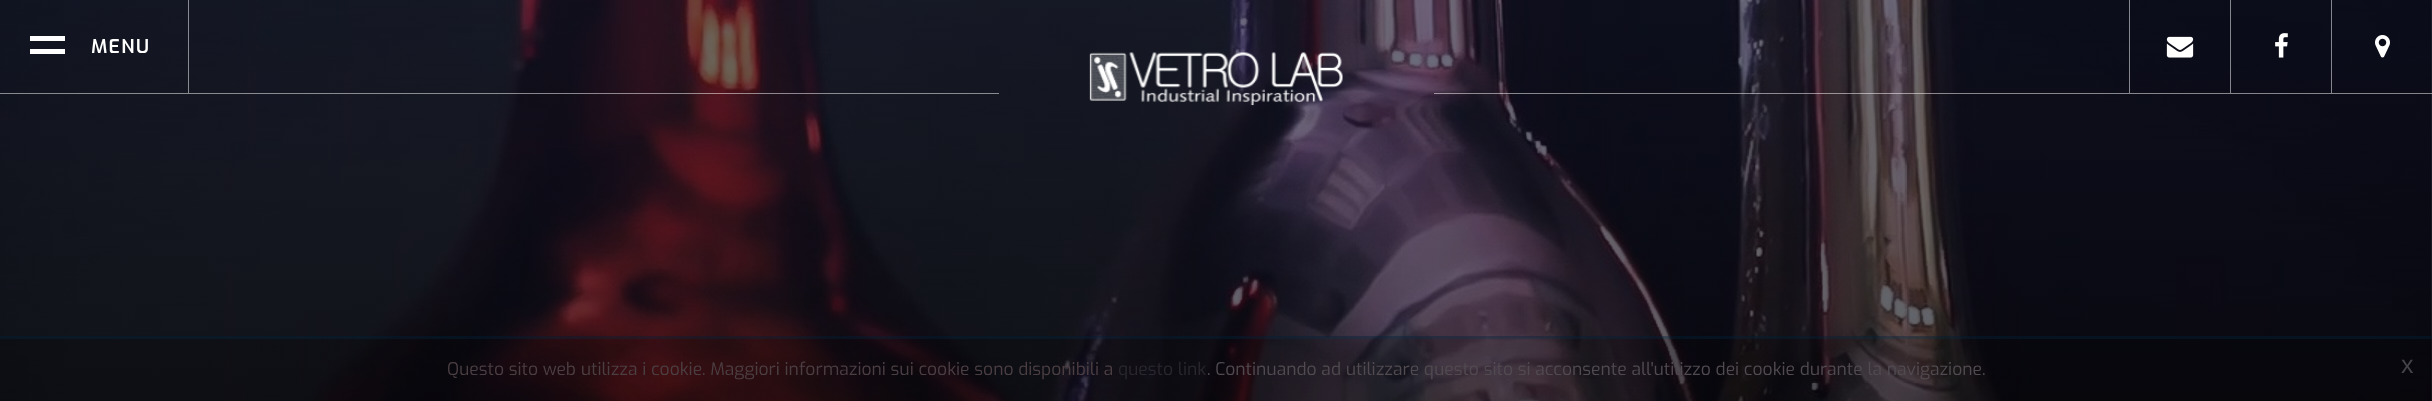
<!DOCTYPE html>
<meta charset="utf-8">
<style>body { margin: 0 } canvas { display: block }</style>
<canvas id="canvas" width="2432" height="401"></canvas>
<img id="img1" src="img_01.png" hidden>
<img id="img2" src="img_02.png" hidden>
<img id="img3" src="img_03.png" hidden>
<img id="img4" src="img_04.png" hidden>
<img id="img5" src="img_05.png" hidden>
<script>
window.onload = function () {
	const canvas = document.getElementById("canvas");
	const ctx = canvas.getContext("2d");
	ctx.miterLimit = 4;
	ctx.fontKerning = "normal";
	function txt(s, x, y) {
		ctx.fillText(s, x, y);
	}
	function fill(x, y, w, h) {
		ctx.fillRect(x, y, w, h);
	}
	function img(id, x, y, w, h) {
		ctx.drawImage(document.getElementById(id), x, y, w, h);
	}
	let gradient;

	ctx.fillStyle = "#FFFFFF";
	fill(0, 0, 2432, 401);
	img("img1", 0, 0, 2432, 401);
	gradient = ctx.createLinearGradient(1216, 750, 1216, 0);
	gradient.addColorStop(0, "rgba(0, 0, 0, 0.67)");
	gradient.addColorStop(1, "rgba(11, 17, 39, 0.6)");
	ctx.fillStyle = gradient;
	fill(0, 0, 2432, 401);
	ctx.fillStyle = "#898B91";
	fill(188, 0, 1, 93);
	ctx.fillStyle = "#FFFFFF";
	fill(30, 36, 35, 5);
	fill(30, 49, 35, 5);
	ctx.fillStyle = "rgba(255, 255, 255, 0.5)";
	fill(2129, 0, 1, 93);
	img("img2", 2166, 36, 28, 22);
	ctx.fillStyle = "#85868C";
	fill(2230, 0, 1, 93);
	img("img3", 2275, 33, 13, 25);
	fill(2331, 0, 1, 93);
	img("img4", 2375, 35, 15, 23);
	img("img5", 1089, 52, 254, 54);
	ctx.fillStyle = "rgba(255, 255, 255, 0.5)";
	fill(0, 93, 999, 1);
	fill(1434, 93, 998, 1);
	ctx.fillStyle = "rgba(0, 0, 0, 0.2)";
	fill(0, 336, 2432, 65);
	ctx.fillStyle = "rgba(0, 58, 97, 0.23)";
	fill(0, 336, 2432, 3);
	ctx.letterSpacing = "1.5px";
	ctx.font = "600 19px Exo";
	ctx.fillStyle = "#FFFFFF";
	txt("MENU", 91, 53);
	ctx.letterSpacing = "0px";
	ctx.font = "17.5px Exo";
	ctx.fillStyle = "#4C3F43";
	txt("Questo sito web utilizza i cookie. Maggiori informazioni sui cookie sono disponibili a", 447, 375);
	ctx.fillStyle = "#2A282E";
	txt("questo link", 1118, 375);
	ctx.fillStyle = "#514B51";
	txt(". Continuando ad utilizzare questo sito si acconsente all'utilizzo dei cookie durante la navigazione.", 1207, 375);
	ctx.font = "25px Liberation Sans";
	ctx.fillStyle = "#434349";
	txt("x", 2401, 373);
};
</script>
